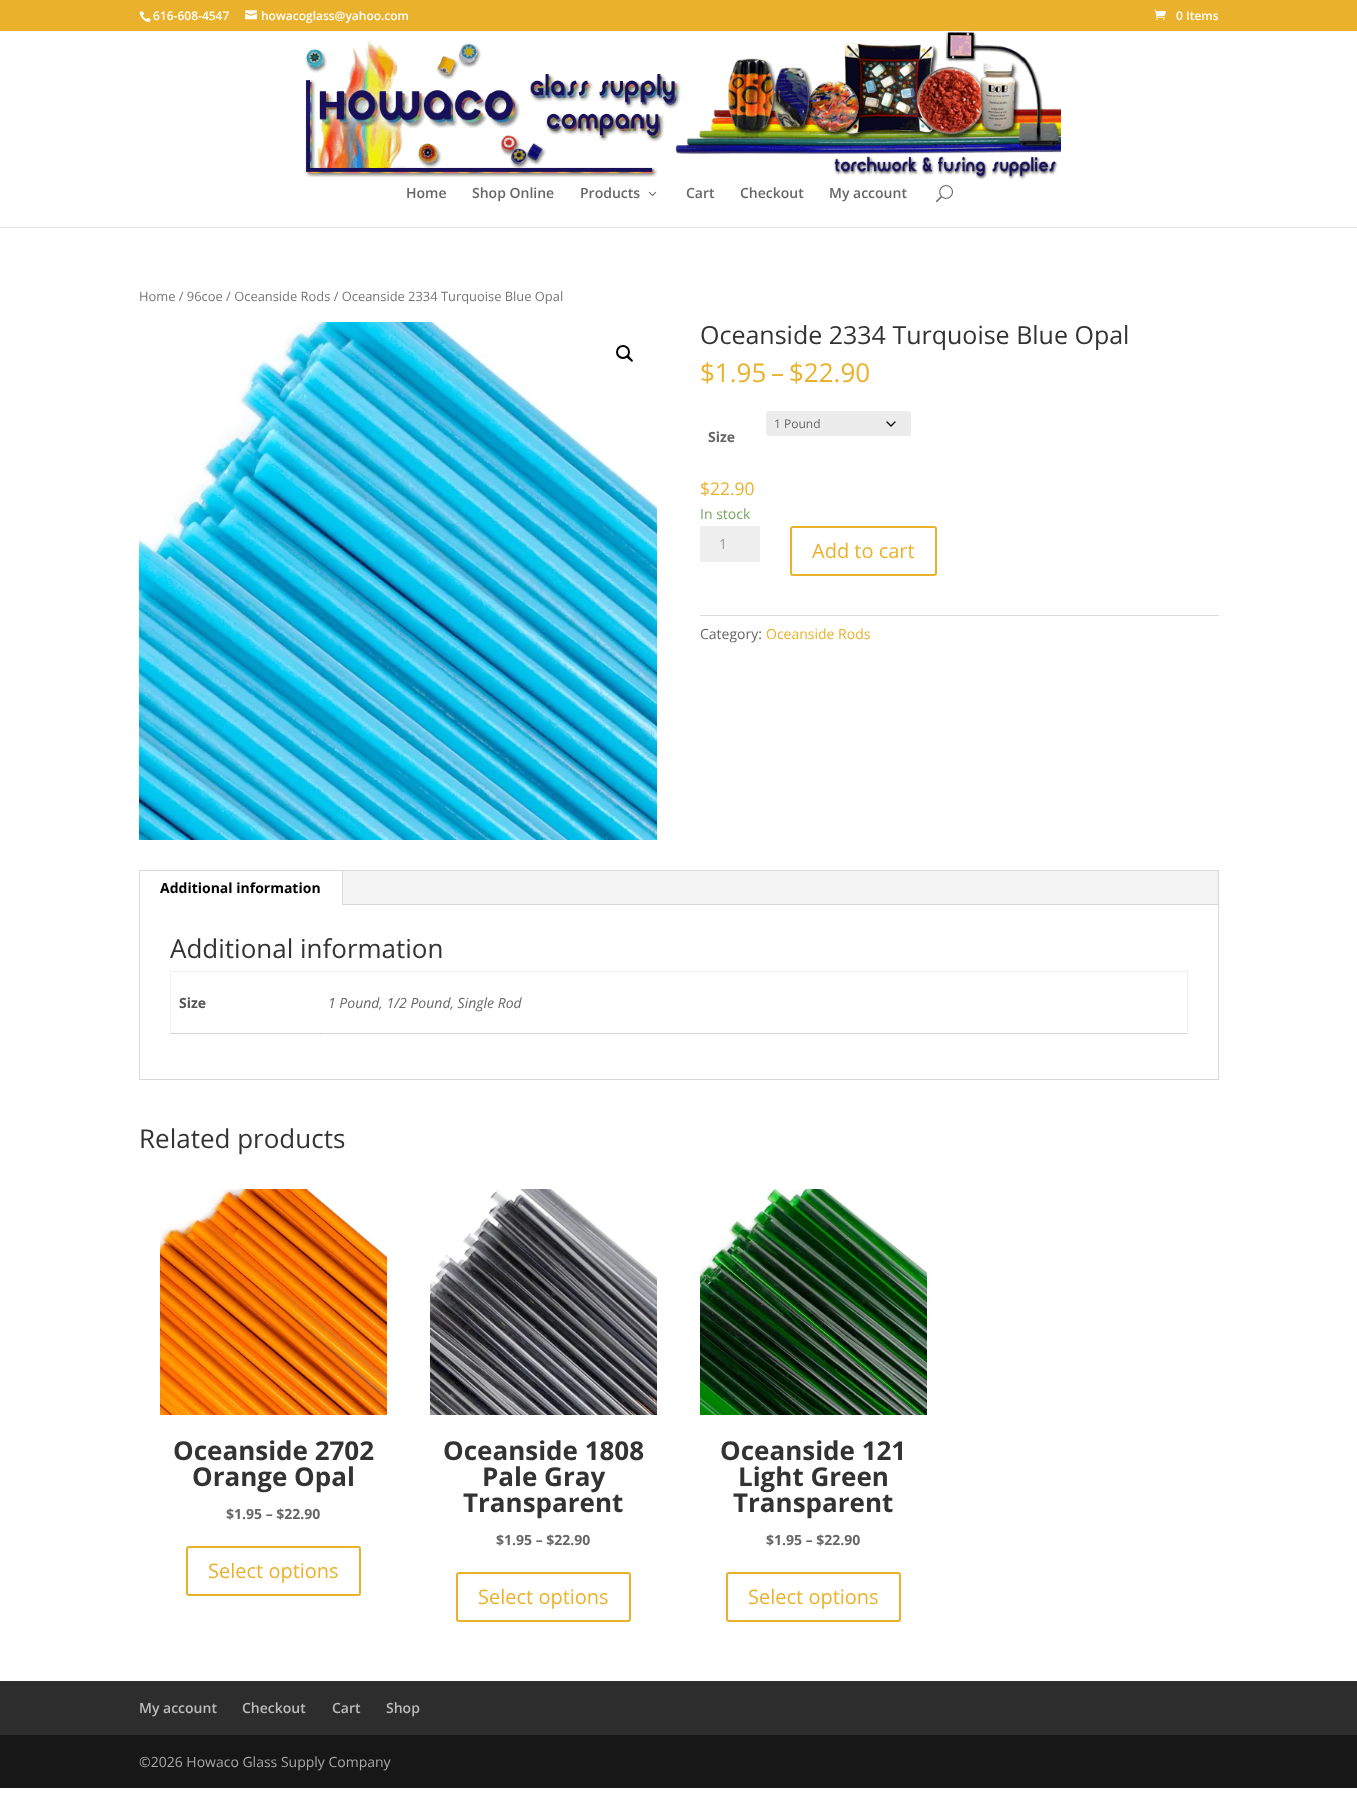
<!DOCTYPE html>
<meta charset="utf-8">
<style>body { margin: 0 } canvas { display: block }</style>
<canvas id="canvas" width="1357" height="1817"></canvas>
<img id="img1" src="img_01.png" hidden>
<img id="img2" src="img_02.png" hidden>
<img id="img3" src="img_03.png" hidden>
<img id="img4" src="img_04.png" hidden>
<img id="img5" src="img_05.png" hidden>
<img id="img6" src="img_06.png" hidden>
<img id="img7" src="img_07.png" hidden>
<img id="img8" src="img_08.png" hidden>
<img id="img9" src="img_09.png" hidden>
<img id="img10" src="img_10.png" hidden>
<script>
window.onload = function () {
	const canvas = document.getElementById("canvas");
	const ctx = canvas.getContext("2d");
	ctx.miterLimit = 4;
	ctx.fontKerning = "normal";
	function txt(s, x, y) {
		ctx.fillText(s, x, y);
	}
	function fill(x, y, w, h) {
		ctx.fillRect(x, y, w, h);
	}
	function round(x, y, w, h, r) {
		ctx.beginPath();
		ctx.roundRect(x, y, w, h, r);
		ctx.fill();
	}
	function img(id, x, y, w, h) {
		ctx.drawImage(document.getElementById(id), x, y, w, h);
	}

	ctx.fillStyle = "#FFFFFF";
	fill(0, 0, 1357, 1817);
	ctx.fillStyle = "#EAB12C";
	fill(0, 0, 1357, 31);
	img("img1", 139, 11, 12, 12);
	img("img2", 245, 10, 12, 10);
	img("img3", 1154, 9, 12, 11);
	ctx.fillStyle = "#E6E6E6";
	fill(0, 227, 1357, 1);
	img("img4", 305, 31, 756, 149);
	img("img5", 648, 191, 9, 5);
	img("img6", 936, 185, 17, 18);
	img("img7", 139, 322, 518, 518);
	ctx.beginPath();
	ctx.arc(623, 352, 6, 0, Math.PI * 2);
	ctx.strokeStyle = "#000000";
	ctx.lineWidth = 2;
	ctx.stroke();
	ctx.fillStyle = "#000000";
	ctx.beginPath();
	ctx.moveTo(627, 356);
	ctx.bezierCurveTo(628.5, 354.5, 630, 357.5, 630.5, 358);
	ctx.bezierCurveTo(631, 358.5, 634, 360.5, 632.5, 361.5);
	ctx.bezierCurveTo(631.5, 362.5, 630, 360, 629, 359.5);
	ctx.bezierCurveTo(628.5, 359, 626, 357, 627, 356);
	ctx.closePath();
	ctx.fill();
	ctx.fillStyle = "#ECECEC";
	round(766, 411, 145, 25, 3);
	ctx.beginPath();
	ctx.moveTo(887, 422);
	ctx.lineTo(891, 426);
	ctx.lineTo(895, 422);
	ctx.lineWidth = 1.3;
	ctx.lineCap = "round";
	ctx.lineJoin = "round";
	ctx.stroke();
	ctx.fillStyle = "#EEEEEE";
	fill(700, 526, 60, 36);
	ctx.beginPath();
	ctx.roundRect(791, 527, 145, 48, 2);
	ctx.strokeStyle = "#EAB12C";
	ctx.lineWidth = 2;
	ctx.lineJoin = "miter";
	ctx.stroke();
	ctx.fillStyle = "#DADADA";
	fill(700, 615, 519, 1);
	ctx.strokeStyle = "#D9D9D9";
	ctx.lineWidth = 1;
	ctx.strokeRect(139.5, 870.5, 1079, 209);
	ctx.fillStyle = "#F4F4F4";
	fill(343, 871, 875, 33);
	ctx.fillStyle = "#D9D9D9";
	fill(342, 871, 1, 34);
	fill(343, 904, 875, 1);
	ctx.fillStyle = "#EEEEEE";
	fill(170, 971, 1018, 1);
	fill(1187, 971, 1, 63);
	ctx.fillStyle = "#D6D6D6";
	fill(170, 1033, 1018, 1);
	ctx.fillStyle = "#EEEEEE";
	fill(170, 971, 1, 63);
	ctx.fillStyle = "#D6D6D6";
	fill(170, 1033, 1, 1);
	ctx.fillStyle = "#C1C1C1";
	fill(320, 1033, 1, 1);
	img("img8", 160, 1189, 227, 226);
	ctx.beginPath();
	ctx.roundRect(187, 1547, 173, 48, 2);
	ctx.strokeStyle = "#EAB12C";
	ctx.lineWidth = 2;
	ctx.stroke();
	img("img9", 430, 1189, 227, 226);
	ctx.beginPath();
	ctx.roundRect(457, 1573, 173, 48, 2);
	ctx.stroke();
	img("img10", 700, 1189, 227, 226);
	ctx.beginPath();
	ctx.roundRect(727, 1573, 173, 48, 2);
	ctx.stroke();
	ctx.fillStyle = "#2D2D2D";
	fill(0, 1681, 1357, 54);
	ctx.fillStyle = "#171717";
	fill(0, 1735, 1357, 53);
	ctx.font = "600 12px Open Sans";
	ctx.fillStyle = "#FFFFFF";
	txt("616-608-4547", 153, 20);
	txt("howacoglass@yahoo.com", 261, 20);
	txt("0 Items", 1176, 20);
	ctx.font = "600 14px Open Sans";
	ctx.fillStyle = "#666666";
	txt("Home", 406, 198);
	txt("Shop Online", 472, 198);
	txt("Products", 580, 198);
	txt("Cart", 686, 198);
	txt("Checkout", 740, 198);
	txt("My account", 829, 198);
	ctx.font = "12.9px Open Sans";
	ctx.fillStyle = "#767676";
	txt("Home / 96coe / Oceanside Rods / Oceanside 2334 Turquoise Blue Opal", 139, 301);
	ctx.font = "25px Open Sans";
	ctx.fillStyle = "#333333";
	txt("Oceanside 2334 Turquoise Blue Opal", 700, 344);
	ctx.font = "26px Open Sans";
	ctx.fillStyle = "#EAB12C";
	txt("$1.95", 700, 382);
	txt("–", 771, 382);
	txt("$22.90", 789, 382);
	ctx.font = "12px Open Sans";
	ctx.fillStyle = "#666666";
	txt("1 Pound", 774, 428);
	ctx.font = "bold 14px Open Sans";
	txt("Size", 708, 442);
	ctx.font = "17.5px Open Sans";
	ctx.fillStyle = "#EAB12C";
	txt("$22.90", 700, 495);
	ctx.font = "14px Open Sans";
	ctx.fillStyle = "#77A464";
	txt("In stock", 700, 519);
	ctx.fillStyle = "#999999";
	txt("1", 719, 549);
	ctx.font = "20px Open Sans";
	ctx.fillStyle = "#EAB12C";
	txt("Add to cart", 812, 558);
	ctx.font = "14px Open Sans";
	ctx.fillStyle = "#666666";
	txt("Category:", 700, 639);
	ctx.fillStyle = "#EAB12C";
	txt("Oceanside Rods", 766, 639);
	ctx.font = "bold 14px Open Sans";
	ctx.fillStyle = "#000000";
	txt("Additional information", 160, 893);
	ctx.font = "26px Open Sans";
	ctx.fillStyle = "#333333";
	txt("Additional information", 170, 958);
	ctx.font = "bold 14px Open Sans";
	ctx.fillStyle = "#555555";
	txt("Size", 179, 1008);
	ctx.font = "italic 14px Open Sans";
	ctx.fillStyle = "#666666";
	txt("1 Pound, 1/2 Pound, Single Rod", 328, 1008);
	ctx.font = "26px Open Sans";
	ctx.fillStyle = "#333333";
	txt("Related products", 139, 1148);
	ctx.font = "bold 26px Open Sans";
	txt("Oceanside 2702", 173, 1460);
	txt("Orange Opal", 192, 1486);
	ctx.font = "bold 14px Open Sans";
	ctx.fillStyle = "#666666";
	txt("$1.95 – $22.90", 226, 1519);
	ctx.font = "20px Open Sans";
	ctx.fillStyle = "#EAB12C";
	txt("Select options", 208, 1578);
	ctx.font = "bold 26px Open Sans";
	ctx.fillStyle = "#333333";
	txt("Oceanside 1808", 443, 1460);
	txt("Pale Gray", 482, 1486);
	txt("Transparent", 463, 1512);
	ctx.font = "bold 14px Open Sans";
	ctx.fillStyle = "#666666";
	txt("$1.95 – $22.90", 496, 1545);
	ctx.font = "20px Open Sans";
	ctx.fillStyle = "#EAB12C";
	txt("Select options", 478, 1604);
	ctx.font = "bold 26px Open Sans";
	ctx.fillStyle = "#333333";
	txt("Oceanside 121", 720, 1460);
	txt("Light Green", 738, 1486);
	txt("Transparent", 733, 1512);
	ctx.font = "bold 14px Open Sans";
	ctx.fillStyle = "#666666";
	txt("$1.95 – $22.90", 766, 1545);
	ctx.font = "20px Open Sans";
	ctx.fillStyle = "#EAB12C";
	txt("Select options", 748, 1604);
	ctx.font = "600 14px Open Sans";
	ctx.fillStyle = "#BBBBBB";
	txt("My account", 139, 1713);
	txt("Checkout", 242, 1713);
	txt("Cart", 332, 1713);
	txt("Shop", 386, 1713);
	ctx.font = "14px Open Sans";
	ctx.fillStyle = "#A8A8A8";
	txt("©2026 Howaco Glass Supply Company", 139, 1767);
};
</script>
